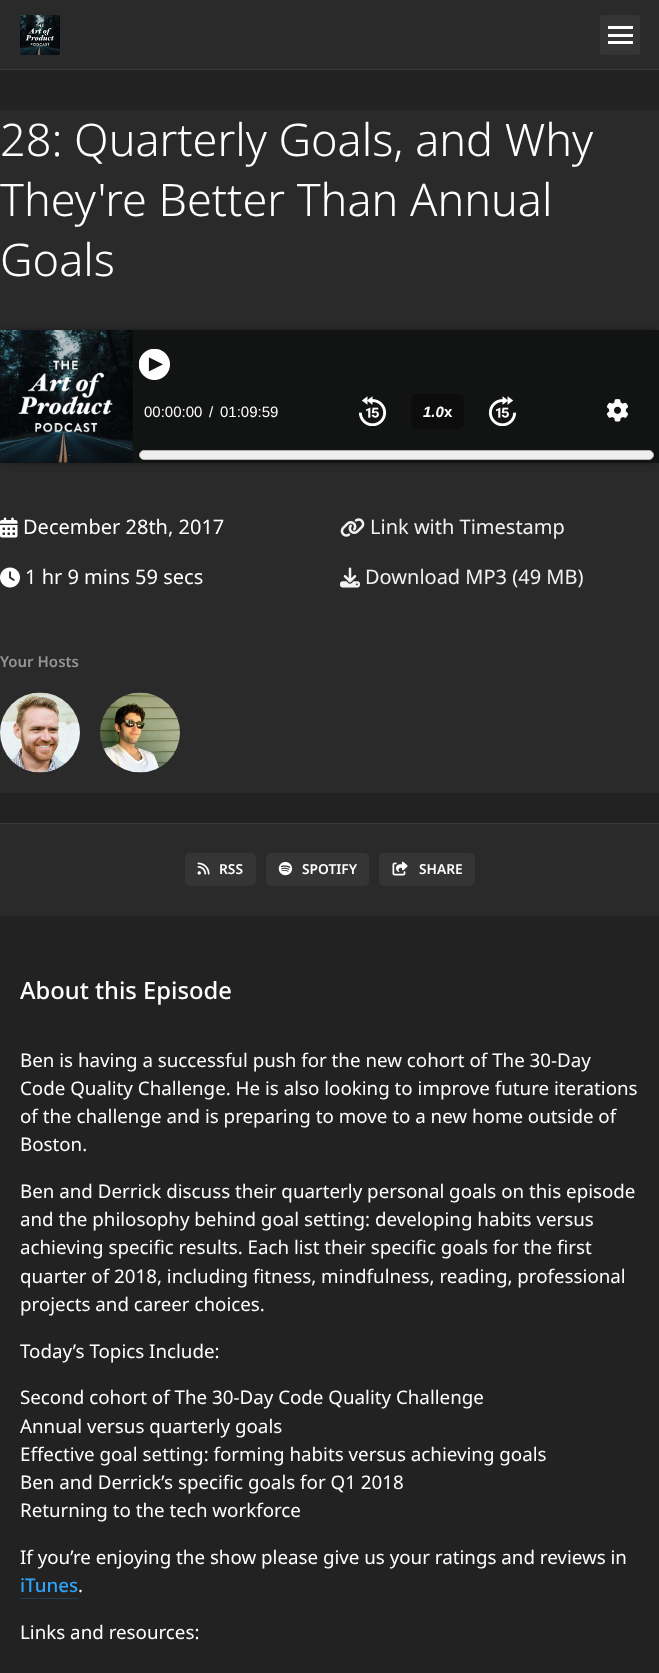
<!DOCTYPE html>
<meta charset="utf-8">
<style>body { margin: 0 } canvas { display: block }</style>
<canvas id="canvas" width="659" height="1673"></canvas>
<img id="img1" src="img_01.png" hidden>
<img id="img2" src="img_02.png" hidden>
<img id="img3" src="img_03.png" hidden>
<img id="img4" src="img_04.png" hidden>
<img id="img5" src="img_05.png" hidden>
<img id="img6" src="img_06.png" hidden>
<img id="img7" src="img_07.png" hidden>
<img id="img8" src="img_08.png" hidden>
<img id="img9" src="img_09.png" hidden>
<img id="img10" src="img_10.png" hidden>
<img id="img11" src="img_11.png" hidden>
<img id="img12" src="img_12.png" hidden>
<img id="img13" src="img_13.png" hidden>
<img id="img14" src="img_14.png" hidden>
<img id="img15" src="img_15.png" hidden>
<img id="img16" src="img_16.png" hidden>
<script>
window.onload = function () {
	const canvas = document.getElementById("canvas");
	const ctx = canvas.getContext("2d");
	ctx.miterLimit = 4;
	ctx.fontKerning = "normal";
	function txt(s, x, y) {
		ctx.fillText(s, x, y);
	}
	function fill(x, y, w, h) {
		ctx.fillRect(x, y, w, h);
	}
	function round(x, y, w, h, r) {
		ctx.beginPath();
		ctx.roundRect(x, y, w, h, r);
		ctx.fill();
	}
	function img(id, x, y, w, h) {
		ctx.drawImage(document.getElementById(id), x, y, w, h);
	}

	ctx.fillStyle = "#222222";
	fill(0, 0, 659, 1673);
	ctx.fillStyle = "#2A2A2A";
	fill(0, 0, 659, 69);
	ctx.fillStyle = "#3B3B3B";
	fill(0, 69, 659, 1);
	img("img1", 20, 15, 40, 40);
	ctx.fillStyle = "#353535";
	round(600, 15, 40, 40, 2.5);
	ctx.fillStyle = "#FFFFFF";
	fill(608, 26, 25, 3);
	fill(608, 34, 25, 3);
	fill(608, 41, 25, 3);
	ctx.fillStyle = "#2A2A2A";
	fill(0, 110, 659, 683);
	ctx.fillStyle = "rgba(0, 0, 0, 0.8)";
	ctx.filter = "blur(5.5px)";
	ctx.beginPath();
	ctx.rect(4, 334, 652, 125);
	ctx.fill();
	ctx.filter = "none";
	ctx.fillStyle = "#121313";
	fill(0, 330, 659, 133);
	img("img2", 0, 330, 133, 133);
	img("img3", 0, 330, 133, 133);
	img("img4", 139, 349, 31, 31);
	img("img5", 358, 396, 29, 30);
	ctx.fillStyle = "#0D0D0D";
	round(411, 394, 53, 35, 5);
	img("img6", 488, 396, 29, 30);
	img("img7", 606, 399, 23, 23);
	ctx.fillStyle = "#EFEFEF";
	ctx.beginPath();
	ctx.roundRect(139.5, 450.5, 514, 9, 4.5);
	ctx.fill();
	ctx.strokeStyle = "#B2B2B2";
	ctx.stroke();
	img("img8", 0, 517, 18, 21);
	img("img9", 0, 567, 20, 21);
	img("img10", 340, 518, 25, 19);
	img("img11", 340, 567, 20, 21);
	img("img12", 0, 692, 80, 81);
	img("img13", 100, 692, 80, 81);
	ctx.fillStyle = "#2A2A2A";
	fill(0, 824, 659, 92);
	ctx.fillStyle = "#3B3B3B";
	fill(0, 823, 659, 1);
	ctx.fillStyle = "#353535";
	round(185, 853, 71, 33, 5);
	img("img14", 197, 862, 13, 13);
	round(266, 853, 103, 33, 5);
	img("img15", 278, 861, 15, 15);
	round(379, 853, 96, 33, 5);
	img("img16", 392, 861, 16, 15);
	ctx.fillStyle = "#243C4D";
	ctx.beginPath();
	ctx.moveTo(20, 1598);
	ctx.lineTo(20, 1599);
	ctx.lineTo(78, 1599);
	ctx.lineTo(78, 1574);
	ctx.lineTo(78, 1598);
	ctx.closePath();
	ctx.fill();
	ctx.font = "300 45px Noto Sans";
	ctx.fillStyle = "#FFFFFF";
	txt("28: Quarterly Goals, and Why", 0, 156);
	txt("They're Better Than Annual", 0, 216);
	txt("Goals", 0, 276);
	ctx.font = "15px Liberation Sans";
	txt("00:00:00", 144, 417);
	txt("/", 209, 417);
	txt("01:09:59", 220, 417);
	ctx.font = "italic bold 15px Liberation Sans";
	txt("1.0", 423, 417);
	ctx.font = "bold 15px Liberation Sans";
	txt("x", 444, 417);
	ctx.font = "20px Noto Sans";
	txt("December 28th, 2017", 23, 534);
	txt("1 hr 9 mins 59 secs", 25, 584);
	ctx.fillStyle = "#F2F2F2";
	txt("Link with Timestamp", 370, 534);
	txt("Download MP3 (49 MB)", 365, 584);
	ctx.font = "600 15px Noto Sans";
	ctx.fillStyle = "#959595";
	txt("Your Hosts", 0, 667);
	ctx.font = "600 13.75px Noto Sans";
	ctx.fillStyle = "#FFFFFF";
	txt("RSS", 219, 874);
	txt("SPOTIFY", 302, 874);
	txt("SHARE", 419, 874);
	ctx.font = "500 23.75px Noto Sans";
	txt("About this Episode", 20, 999);
	ctx.font = "18.75px Noto Sans";
	txt("Ben is having a successful push for the new cohort of The 30-Day", 20, 1067);
	txt("Code Quality Challenge. He is also looking to improve future iterations", 20, 1095);
	txt("of the challenge and is preparing to move to a new home outside of", 20, 1123);
	txt("Boston.", 20, 1151);
	txt("Ben and Derrick discuss their quarterly personal goals on this episode", 20, 1198);
	txt("and the philosophy behind goal setting: developing habits versus", 20, 1226);
	txt("achieving specific results. Each list their specific goals for the first", 20, 1254);
	txt("quarter of 2018, including fitness, mindfulness, reading, professional", 20, 1283);
	txt("projects and career choices.", 20, 1311);
	txt("Today’s Topics Include:", 20, 1358);
	txt("Second cohort of The 30-Day Code Quality Challenge", 20, 1404);
	txt("Annual versus quarterly goals", 20, 1433);
	txt("Effective goal setting: forming habits versus achieving goals", 20, 1461);
	txt("Ben and Derrick’s specific goals for Q1 2018", 20, 1489);
	txt("Returning to the tech workforce", 20, 1517);
	txt("If you’re enjoying the show please give us your ratings and reviews in", 20, 1564);
	ctx.font = "500 18.75px Noto Sans";
	ctx.fillStyle = "#2EA4F9";
	txt("iTunes", 20, 1592);
	ctx.font = "18.75px Noto Sans";
	ctx.fillStyle = "#FFFFFF";
	txt(".", 78, 1592);
	txt("Links and resources:", 20, 1639);
};
</script>
